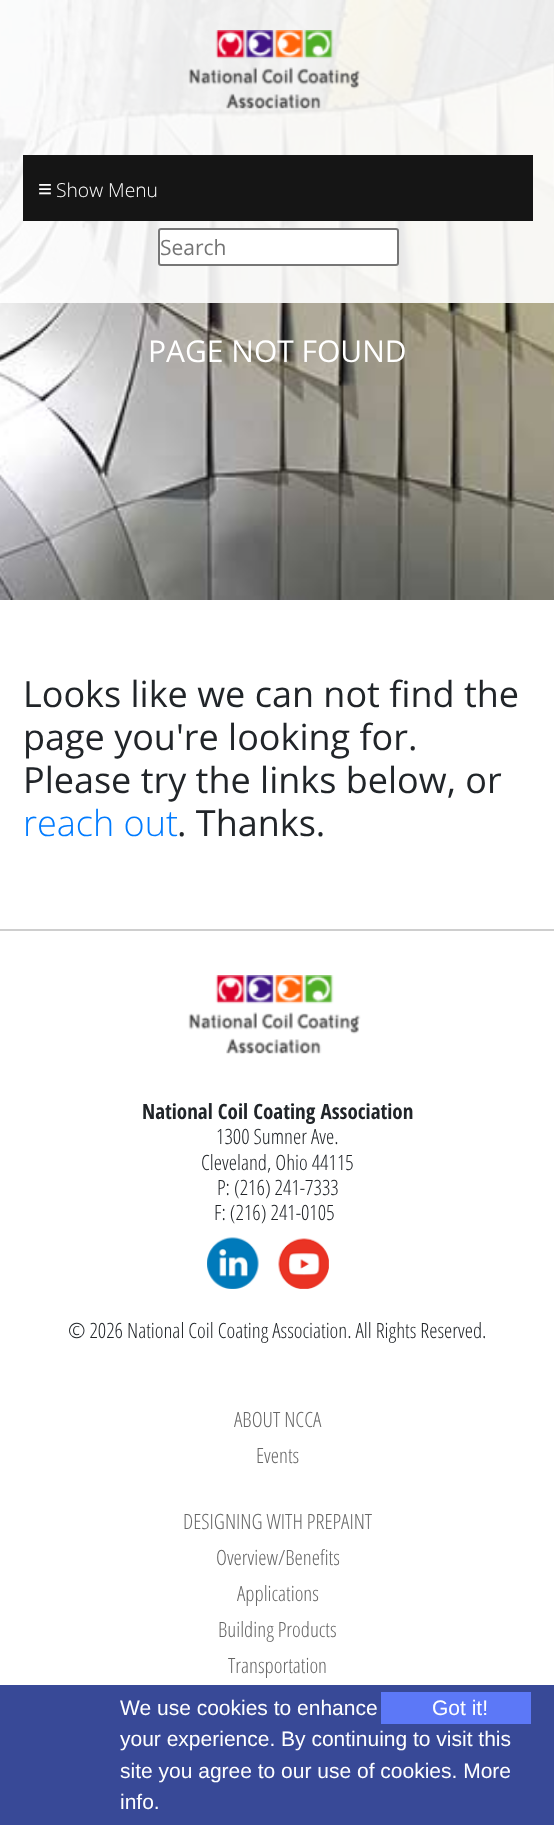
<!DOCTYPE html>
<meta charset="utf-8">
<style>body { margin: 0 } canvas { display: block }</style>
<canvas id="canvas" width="554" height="1825"></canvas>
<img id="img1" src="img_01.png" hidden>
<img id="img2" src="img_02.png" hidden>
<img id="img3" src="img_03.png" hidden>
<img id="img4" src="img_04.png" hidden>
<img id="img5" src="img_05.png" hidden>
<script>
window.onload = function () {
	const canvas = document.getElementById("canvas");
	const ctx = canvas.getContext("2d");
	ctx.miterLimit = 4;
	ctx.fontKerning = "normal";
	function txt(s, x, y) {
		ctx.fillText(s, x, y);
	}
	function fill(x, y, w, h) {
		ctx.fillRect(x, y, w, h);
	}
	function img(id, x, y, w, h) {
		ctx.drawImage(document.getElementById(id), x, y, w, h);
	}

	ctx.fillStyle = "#FFFFFF";
	fill(0, 0, 554, 1825);
	img("img1", 0, 0, 554, 600);
	ctx.fillStyle = "rgba(255, 255, 255, 0.9)";
	fill(0, 0, 554, 303);
	img("img2", 188, 30, 173, 79);
	ctx.fillStyle = "#151515";
	fill(23, 155, 510, 66);
	ctx.fillStyle = "#FFFFFF";
	ctx.beginPath();
	ctx.roundRect(159, 229, 239, 36, 2);
	ctx.fill();
	ctx.strokeStyle = "#767676";
	ctx.lineWidth = 2;
	ctx.stroke();
	ctx.fillStyle = "#CECECE";
	fill(0, 929, 554, 2);
	img("img3", 188, 975, 173, 79);
	img("img4", 207, 1237, 52, 52);
	img("img5", 278, 1238, 51, 51);
	ctx.fillStyle = "#384997";
	fill(0, 1685, 554, 140);
	ctx.fillStyle = "#5C78F7";
	fill(381, 1692, 150, 32);
	ctx.font = "24px Liberation Sans";
	ctx.fillStyle = "#FFFFFF";
	txt("≡", 38, 197);
	ctx.font = "300 19.25px Open Sans";
	txt("Show Menu", 56, 197);
	ctx.font = "21px Open Sans";
	ctx.fillStyle = "#757575";
	txt("Search", 160, 255);
	ctx.font = "30px Open Sans";
	ctx.fillStyle = "#FFFFFF";
	txt("PAGE NOT FOUND", 148, 362);
	ctx.font = "36px Open Sans";
	ctx.fillStyle = "#212529";
	txt("Looks like we can not find the", 23, 707);
	txt("page you're looking for.", 23, 750);
	txt("Please try the links below, or", 23, 793);
	ctx.font = "300 36px Open Sans";
	ctx.fillStyle = "#007BFF";
	txt("reach out", 23, 836);
	ctx.font = "36px Open Sans";
	ctx.fillStyle = "#212529";
	txt(". Thanks.", 177, 836);
	ctx.font = "bold 21px Open Sans Condensed";
	txt("National Coil Coating Association", 142, 1119);
	ctx.font = "300 21px Open Sans Condensed";
	txt("1300 Sumner Ave.", 216, 1144);
	txt("Cleveland, Ohio 44115", 201, 1170);
	txt("P: (216) 241-7333", 217, 1195);
	txt("F: (216) 241-0105", 214, 1220);
	txt("© 2026 National Coil Coating Association. All Rights Reserved.", 68, 1338);
	ctx.fillStyle = "#666666";
	txt("ABOUT NCCA", 234, 1427);
	txt("Events", 256, 1463);
	txt("DESIGNING WITH PREPAINT", 183, 1529);
	txt("Overview/Benefits", 216, 1565);
	txt("Applications", 237, 1601);
	txt("Building Products", 218, 1637);
	txt("Transportation", 228, 1673);
	ctx.font = "21px Liberation Sans";
	ctx.fillStyle = "#FFFFFF";
	txt("We use cookies to enhance", 120, 1715);
	txt("Got it!", 432, 1715);
	txt("your experience. By continuing to visit this", 120, 1746);
	txt("site you agree to our use of cookies. More", 120, 1778);
	txt("info.", 120, 1809);
};
</script>
